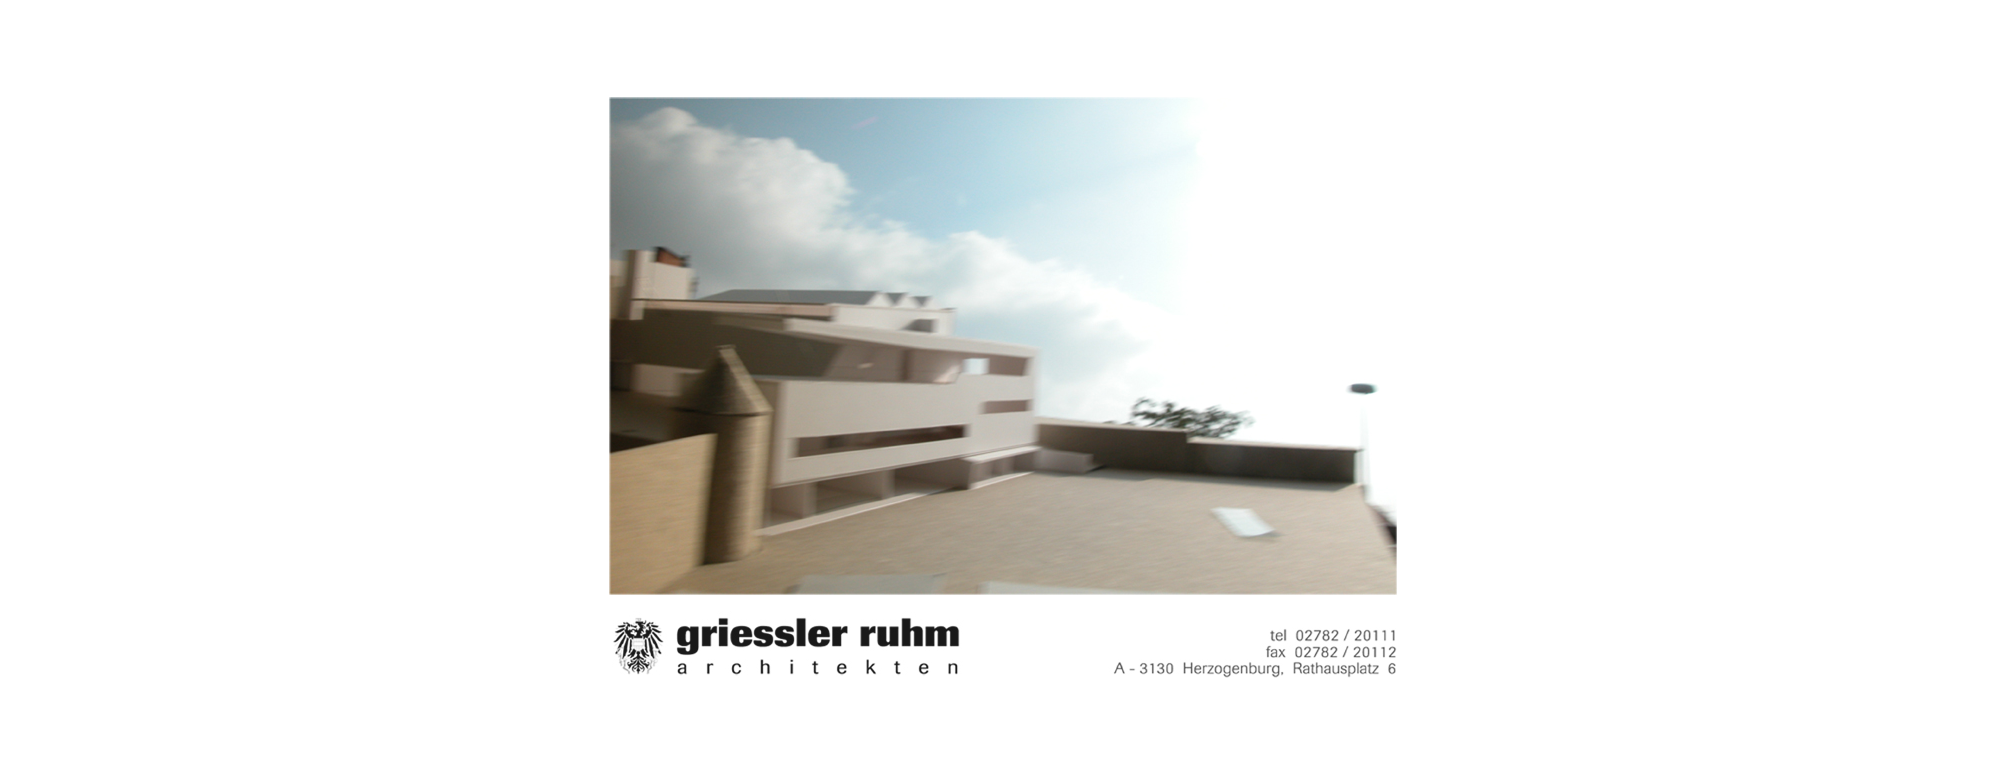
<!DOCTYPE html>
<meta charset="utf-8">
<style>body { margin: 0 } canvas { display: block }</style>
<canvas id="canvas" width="2007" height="780"></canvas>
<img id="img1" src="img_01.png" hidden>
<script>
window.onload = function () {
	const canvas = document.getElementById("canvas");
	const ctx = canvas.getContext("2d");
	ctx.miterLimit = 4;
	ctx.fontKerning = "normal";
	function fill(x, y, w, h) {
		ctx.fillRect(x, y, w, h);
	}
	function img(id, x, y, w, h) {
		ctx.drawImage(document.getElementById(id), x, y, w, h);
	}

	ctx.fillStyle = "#FFFFFF";
	fill(0, 0, 2007, 780);
	img("img1", 609, 97, 788, 581);
};
</script>
